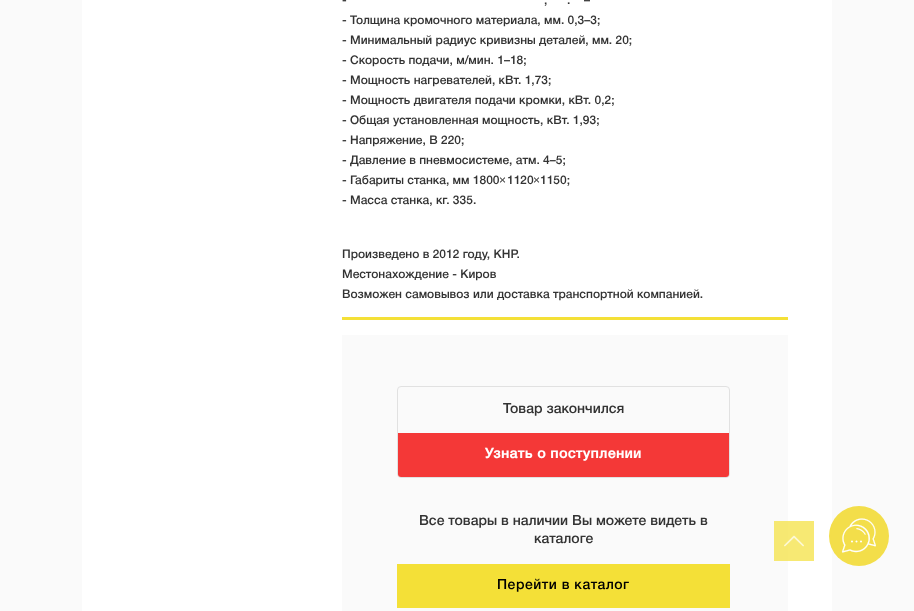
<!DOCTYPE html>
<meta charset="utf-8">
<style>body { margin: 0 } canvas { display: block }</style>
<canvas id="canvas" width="914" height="611"></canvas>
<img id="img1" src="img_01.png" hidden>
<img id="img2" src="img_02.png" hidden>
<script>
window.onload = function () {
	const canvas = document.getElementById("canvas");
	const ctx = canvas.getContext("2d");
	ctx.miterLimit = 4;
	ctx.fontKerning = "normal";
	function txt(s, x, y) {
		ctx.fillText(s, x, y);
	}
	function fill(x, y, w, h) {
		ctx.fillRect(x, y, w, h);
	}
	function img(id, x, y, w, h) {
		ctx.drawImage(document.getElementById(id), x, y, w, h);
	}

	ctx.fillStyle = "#FAFAFA";
	fill(0, 0, 914, 611);
	ctx.fillStyle = "#FFFFFF";
	fill(82, 0, 750, 611);
	ctx.fillStyle = "#F7E973";
	fill(788, 521, 26, 40);
	ctx.fillStyle = "#F4E037";
	fill(342, 317, 446, 3);
	ctx.fillStyle = "#FAFAFA";
	fill(342, 335, 446, 276);
	ctx.fillStyle = "#F6E872";
	fill(774, 521, 14, 40);
	ctx.beginPath();
	ctx.roundRect(397.5, 386.5, 332, 91, 3.5);
	ctx.strokeStyle = "#E1E1E1";
	ctx.stroke();
	ctx.fillStyle = "#F43837";
	ctx.beginPath();
	ctx.roundRect(398, 433, 331, 44, [0, 0, 3, 3]);
	ctx.fill();
	ctx.fillStyle = "#F4E037";
	fill(397, 564, 333, 44);
	img("img1", 784, 535, 20, 12);
	ctx.fillStyle = "#F3DE4A";
	ctx.beginPath();
	ctx.arc(859, 536, 30, 0, Math.PI * 2);
	ctx.fill();
	img("img2", 841, 518, 35, 35);
	ctx.font = "500 12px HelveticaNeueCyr";
	ctx.fillStyle = "#333333";
	txt("-", 342, 4);
	txt("–", 584, 4);
	txt(",", 544, 4);
	txt(".", 567, 4);
	txt("- Толщина кромочного материала, мм. 0,3–3;", 342, 24);
	txt("- Минимальный радиус кривизны деталей, мм. 20;", 342, 44);
	txt("- Скорость подачи, м/мин. 1–18;", 342, 64);
	txt("- Мощность нагревателей, кВт. 1,73;", 342, 84);
	txt("- Мощность двигателя подачи кромки, кВт. 0,2;", 342, 104);
	txt("- Общая установленная мощность, кВт. 1,93;", 342, 124);
	txt("- Напряжение, В 220;", 342, 144);
	txt("- Давление в пневмосистеме, атм. 4–5;", 342, 164);
	txt("- Габариты станка, мм 1800", 342, 184);
	ctx.font = "12px Liberation Sans";
	txt("×", 499, 184);
	ctx.font = "500 12px HelveticaNeueCyr";
	txt("1120", 507, 184);
	ctx.font = "12px Liberation Sans";
	txt("×", 533, 184);
	ctx.font = "500 12px HelveticaNeueCyr";
	txt("1150;", 540, 184);
	txt("- Масса станка, кг. 335.", 342, 204);
	txt("Произведено в 2012 году, КНР.", 342, 258);
	txt("Местонахождение - Киров", 342, 278);
	txt("Возможен самовывоз или доставка транспортной компанией.", 342, 298);
	ctx.font = "500 14px HelveticaNeueCyr";
	txt("Товар закончился", 503, 413);
	ctx.letterSpacing = "0.5px";
	ctx.font = "bold 14px HelveticaNeueCyr";
	ctx.fillStyle = "#FFFFFF";
	txt("Узнать о поступлении", 485, 458);
	ctx.letterSpacing = "0px";
	ctx.font = "500 14px HelveticaNeueCyr";
	ctx.fillStyle = "#333333";
	txt("Все товары в наличии Вы можете видеть в", 419, 525);
	txt("каталоге", 534, 543);
	ctx.letterSpacing = "0.5px";
	ctx.fillStyle = "#000000";
	txt("Перейти в каталог", 497, 589);
};
</script>
